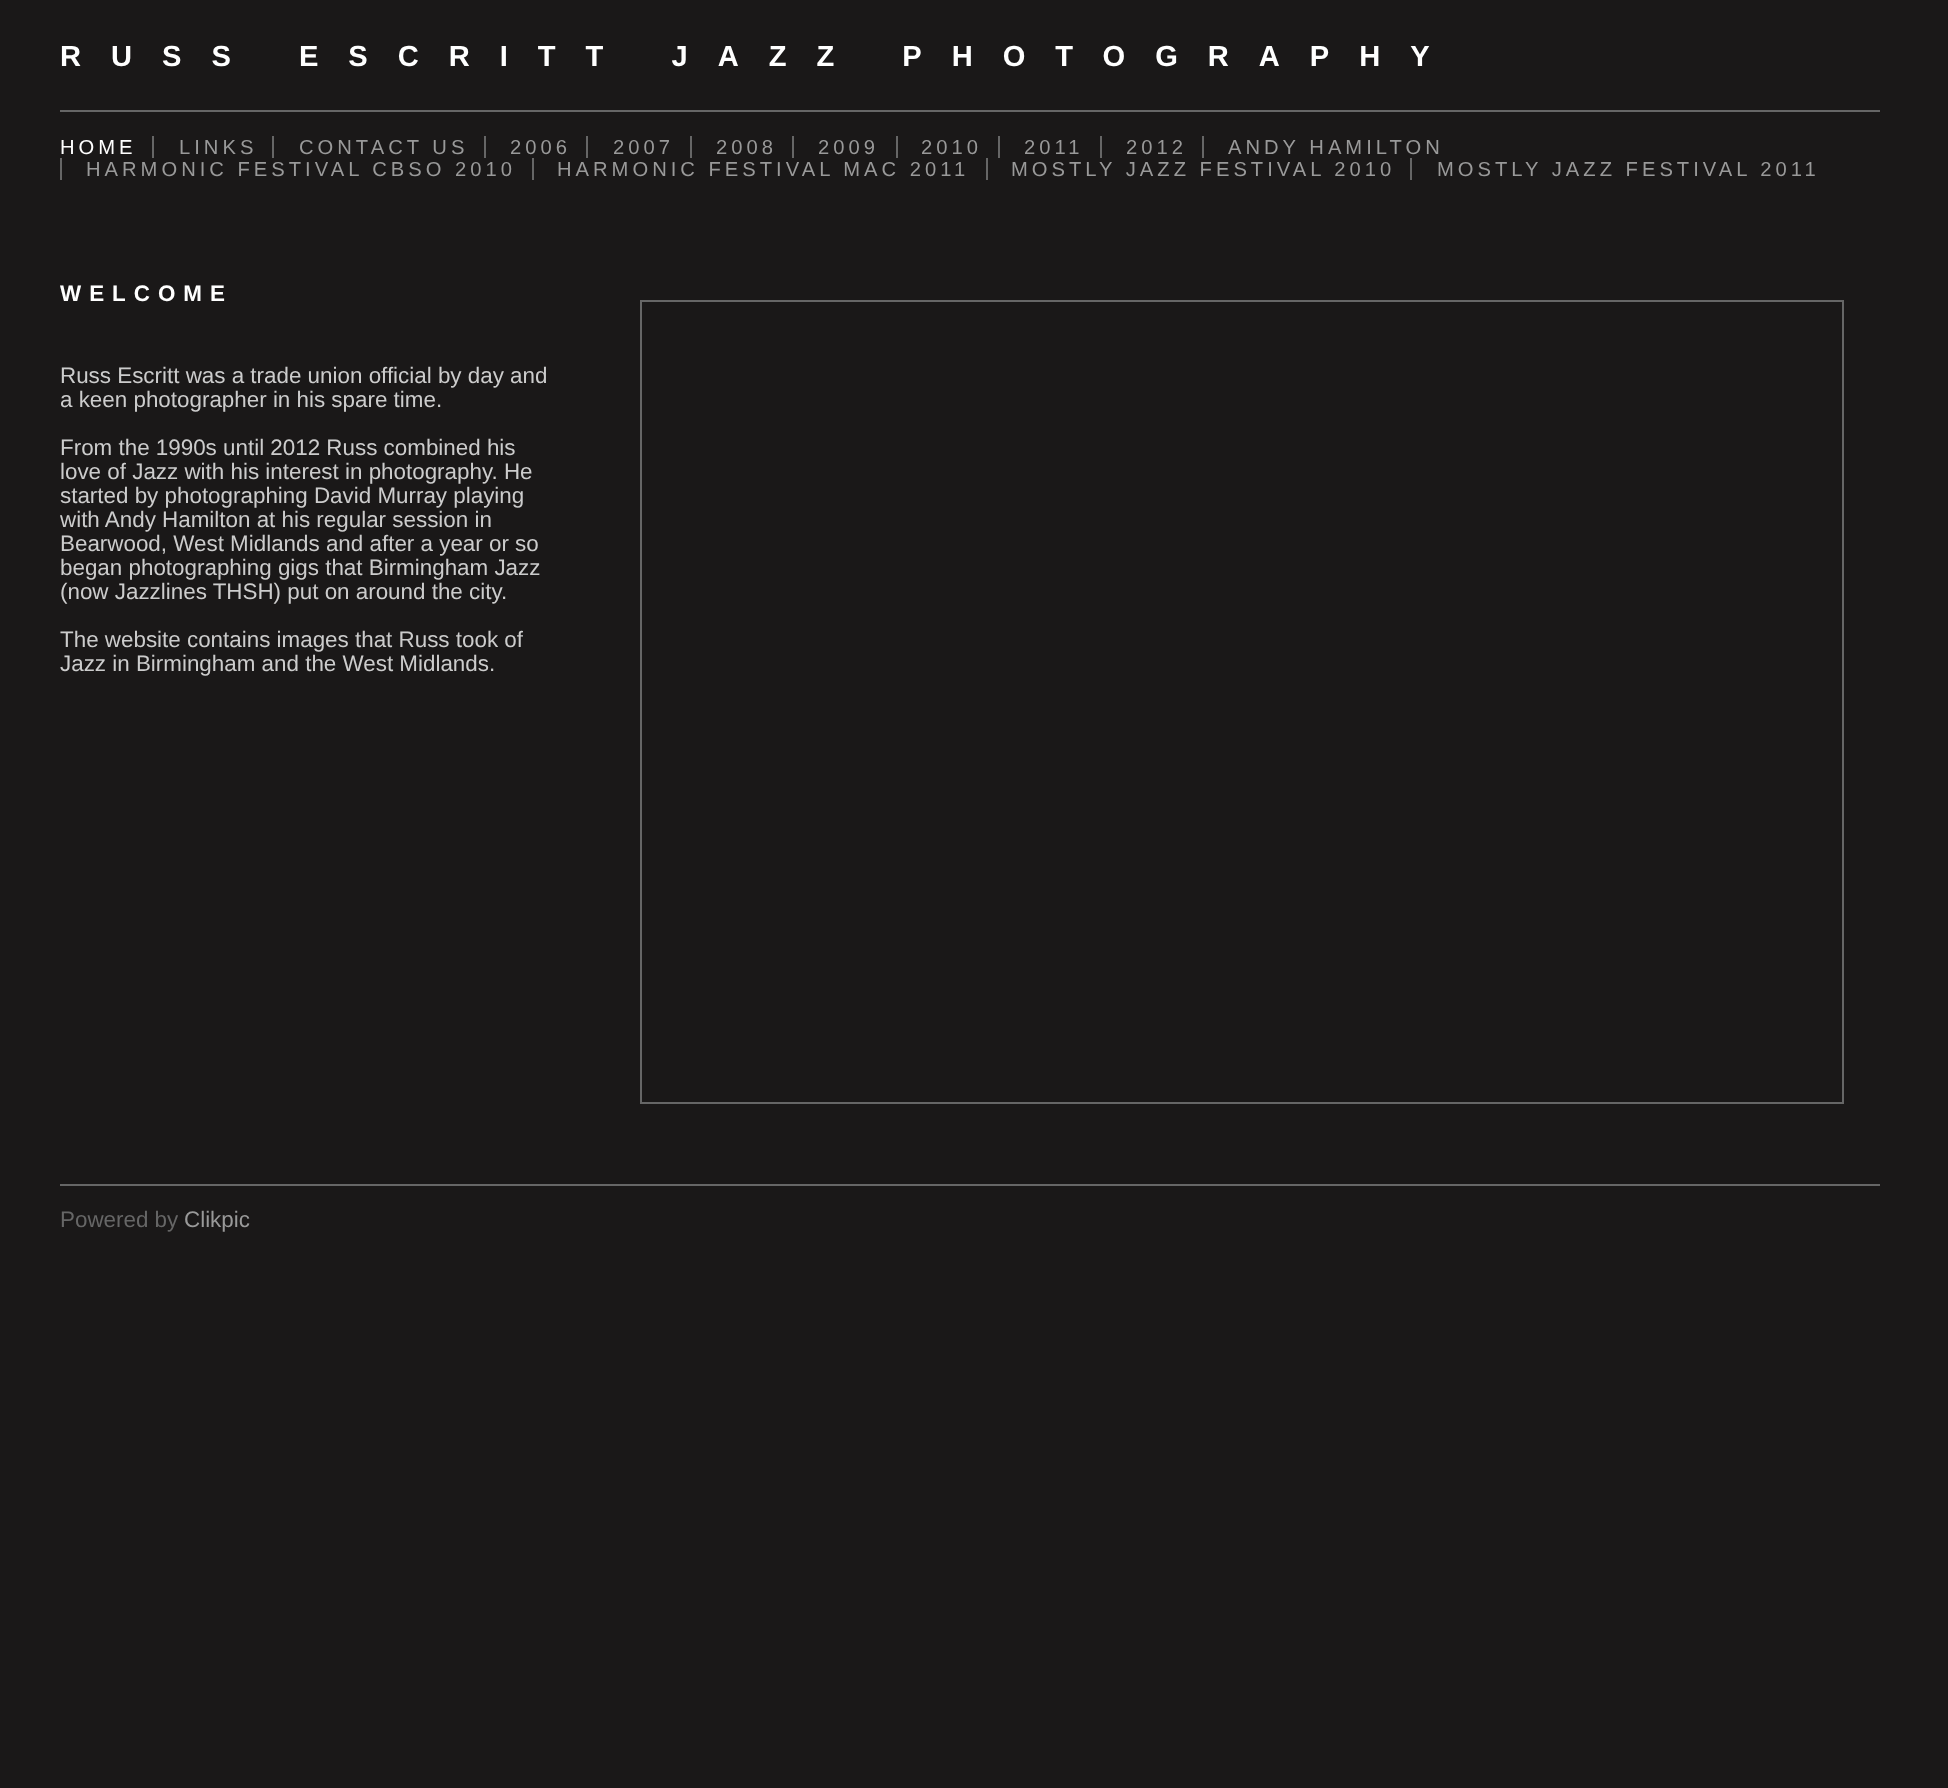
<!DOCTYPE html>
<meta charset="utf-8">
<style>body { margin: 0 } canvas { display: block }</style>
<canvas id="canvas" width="1948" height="1788"></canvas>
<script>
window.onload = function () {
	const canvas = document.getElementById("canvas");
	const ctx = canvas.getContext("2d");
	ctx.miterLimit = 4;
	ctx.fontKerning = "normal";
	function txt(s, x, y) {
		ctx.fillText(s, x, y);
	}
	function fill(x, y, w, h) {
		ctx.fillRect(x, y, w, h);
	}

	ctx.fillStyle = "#1A1818";
	fill(0, 0, 1948, 1788);
	ctx.fillStyle = "#666666";
	fill(60, 110, 1820, 2);
	fill(152, 136, 2, 22);
	fill(272, 136, 2, 22);
	fill(484, 136, 2, 22);
	fill(586, 136, 2, 22);
	fill(690, 136, 2, 22);
	fill(792, 136, 2, 22);
	fill(896, 136, 2, 22);
	fill(998, 136, 2, 22);
	fill(1100, 136, 2, 22);
	fill(1202, 136, 2, 22);
	fill(60, 158, 2, 22);
	fill(532, 158, 2, 22);
	fill(986, 158, 2, 22);
	fill(1410, 158, 2, 22);
	ctx.strokeStyle = "#666666";
	ctx.lineWidth = 2;
	ctx.strokeRect(641, 301, 1202, 802);
	fill(60, 1184, 1820, 2);
	ctx.letterSpacing = "30px";
	ctx.font = "bold 29.1px Liberation Sans";
	ctx.fillStyle = "#FFFFFF";
	txt("RUSS ESCRITT JAZZ PHOTOGRAPHY", 60, 66);
	ctx.letterSpacing = "4px";
	ctx.font = "20.2px Liberation Sans";
	txt("HOME", 60, 154);
	ctx.fillStyle = "#999999";
	txt("LINKS", 179, 154);
	txt("CONTACT US", 299, 154);
	txt("2006", 510, 154);
	txt("2007", 613, 154);
	txt("2008", 716, 154);
	txt("2009", 818, 154);
	txt("2010", 921, 154);
	txt("2011", 1024, 154);
	txt("2012", 1126, 154);
	txt("ANDY HAMILTON", 1228, 154);
	txt("HARMONIC FESTIVAL CBSO 2010", 86, 176);
	txt("HARMONIC FESTIVAL MAC 2011", 557, 176);
	txt("MOSTLY JAZZ FESTIVAL 2010", 1011, 176);
	txt("MOSTLY JAZZ FESTIVAL 2011", 1437, 176);
	ctx.letterSpacing = "8px";
	ctx.font = "bold 22.4px Liberation Sans";
	ctx.fillStyle = "#FFFFFF";
	txt("WELCOME", 60, 301);
	ctx.letterSpacing = "0px";
	ctx.font = "22.4px Liberation Sans";
	ctx.fillStyle = "#CCCCCC";
	txt("Russ Escritt was a trade union official by day and", 60, 383);
	txt("a keen photographer in his spare time.", 60, 407);
	txt("From the 1990s until 2012 Russ combined his", 60, 455);
	txt("love of Jazz with his interest in photography. He", 60, 479);
	txt("started by photographing David Murray playing", 60, 503);
	txt("with Andy Hamilton at his regular session in", 60, 527);
	txt("Bearwood, West Midlands and after a year or so", 60, 551);
	txt("began photographing gigs that Birmingham Jazz", 60, 575);
	txt("(now Jazzlines THSH) put on around the city.", 60, 599);
	txt("The website contains images that Russ took of", 60, 647);
	txt("Jazz in Birmingham and the West Midlands.", 60, 671);
	ctx.fillStyle = "#666666";
	txt("Powered by", 60, 1227);
	ctx.fillStyle = "#999999";
	txt("Clikpic", 184, 1227);
};
</script>
